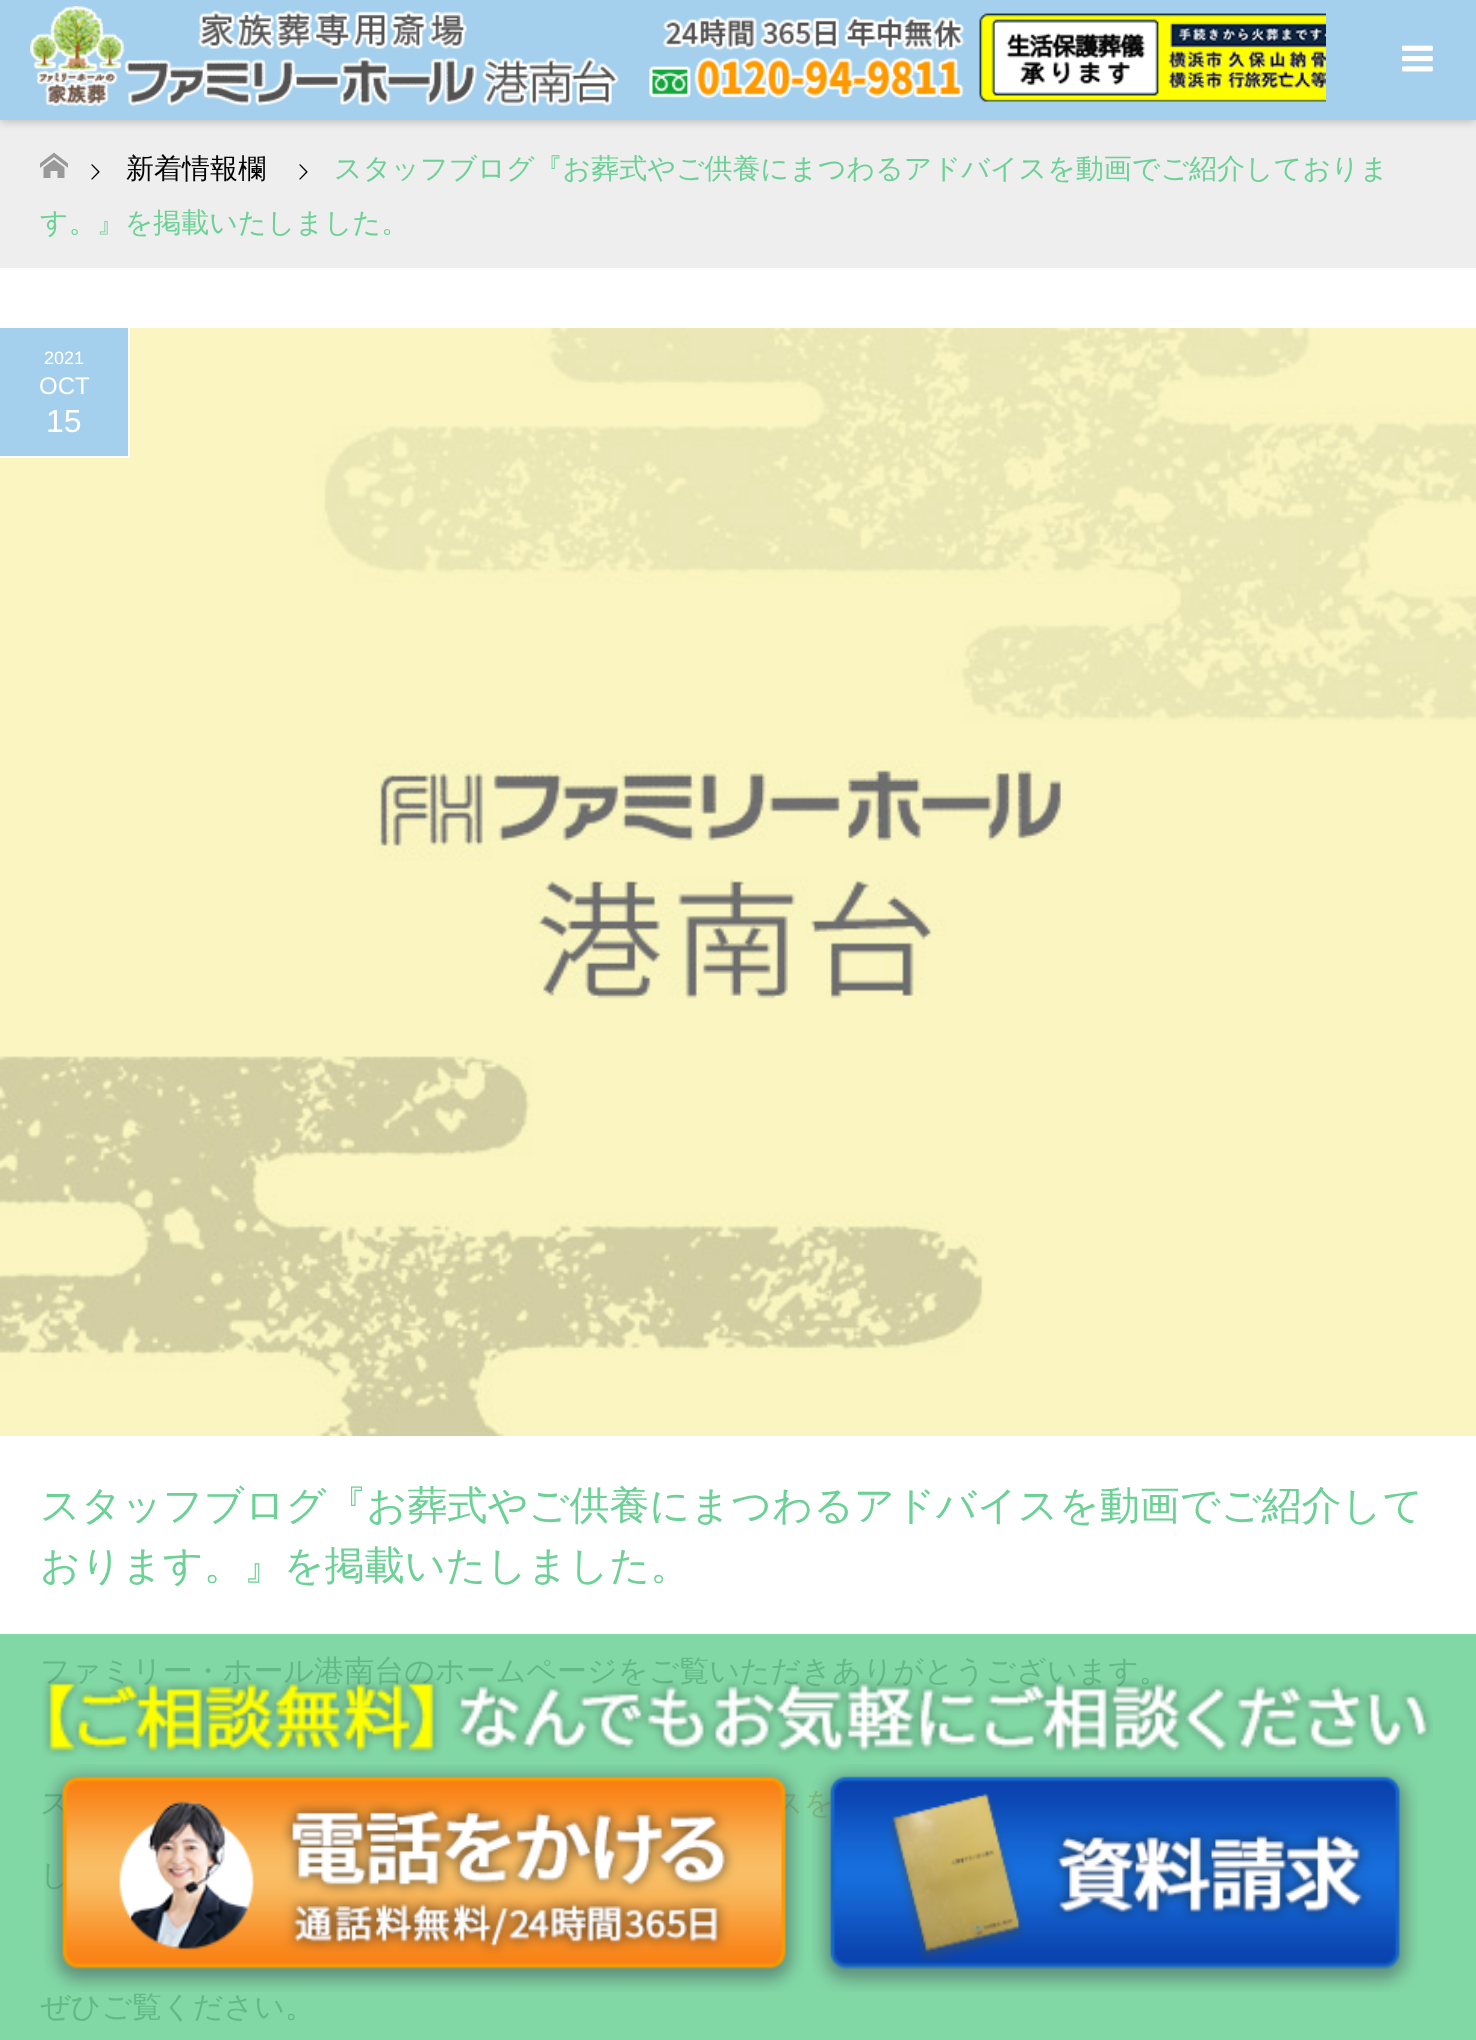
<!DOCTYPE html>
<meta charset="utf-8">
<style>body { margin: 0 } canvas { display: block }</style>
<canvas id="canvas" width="1476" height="2040"></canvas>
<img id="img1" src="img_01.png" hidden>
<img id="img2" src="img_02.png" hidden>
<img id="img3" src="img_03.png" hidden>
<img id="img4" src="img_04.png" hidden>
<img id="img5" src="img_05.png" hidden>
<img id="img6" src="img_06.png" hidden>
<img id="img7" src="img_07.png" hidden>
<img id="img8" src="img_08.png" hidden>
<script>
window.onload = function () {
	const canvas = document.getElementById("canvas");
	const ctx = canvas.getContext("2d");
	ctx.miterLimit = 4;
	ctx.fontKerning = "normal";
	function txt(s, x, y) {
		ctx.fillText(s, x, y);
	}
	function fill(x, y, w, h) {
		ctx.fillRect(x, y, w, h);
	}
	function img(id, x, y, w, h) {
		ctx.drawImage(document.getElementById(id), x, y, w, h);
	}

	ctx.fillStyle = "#FFFFFF";
	fill(0, 0, 1476, 2040);
	ctx.fillStyle = "#82D8A5";
	fill(0, 1634, 1476, 406);
	ctx.fillStyle = "#EEEEEE";
	fill(0, 120, 1476, 148);
	ctx.fillStyle = "rgba(0, 0, 0, 0.2)";
	ctx.filter = "blur(4px)";
	ctx.beginPath();
	ctx.rect(0, 2, 1476, 120);
	ctx.fill();
	ctx.filter = "none";
	ctx.fillStyle = "#A4D0ED";
	fill(0, 0, 1476, 120);
	img("img1", 30, 6, 1296, 100);
	img("img2", 1402, 45, 31, 27);
	img("img3", 40, 152, 28, 26);
	img("img4", 299, 164, 9, 16);
	img("img4", 91, 164, 9, 16);
	img("img5", 0, 328, 1476, 1108);
	fill(0, 328, 128, 128);
	ctx.fillStyle = "#FFFFFF";
	fill(128, 328, 2, 130);
	fill(0, 456, 130, 2);
	ctx.font = "500 28px WenQuanYi Zen Hei";
	ctx.fillStyle = "#6CD195";
	txt("スタッフブログ『お葬式やご供養にまつわるアドバイスを動画でご紹介しておりま", 334, 178);
	txt("す。』を掲載いたしました。", 40, 232);
	ctx.fillStyle = "#000000";
	txt("新着情報欄", 126, 178);
	ctx.font = "18px Liberation Sans";
	ctx.fillStyle = "#FFFFFF";
	txt("2021", 44, 364);
	ctx.font = "24px Liberation Sans";
	txt("OCT", 39, 394);
	ctx.font = "32px Liberation Sans";
	txt("15", 46, 432);
	ctx.font = "500 40px WenQuanYi Zen Hei";
	ctx.fillStyle = "#6CD195";
	txt("スタッフブログ『お葬式やご供養にまつわるアドバイスを動画でご紹介して", 40, 1519);
	txt("おります。』を掲載いたしました。", 40, 1579);
	ctx.font = "500 30px WenQuanYi Zen Hei";
	ctx.fillStyle = "#63B986";
	txt("ファミリー・ホール港南台のホームページをご覧いただきありがとうございます。", 40, 1681);
	txt("ス", 40, 1813);
	ctx.fillStyle = "#82BB7F";
	txt("スを", 773, 1813);
	ctx.fillStyle = "#63B986";
	txt("し", 40, 1885);
	txt("ぜひご覧ください。", 40, 2017);
	img("img6", 42, 1676, 1391, 81);
	img("img7", 44, 1764, 760, 228);
	img("img8", 812, 1764, 606, 228);
};
</script>
